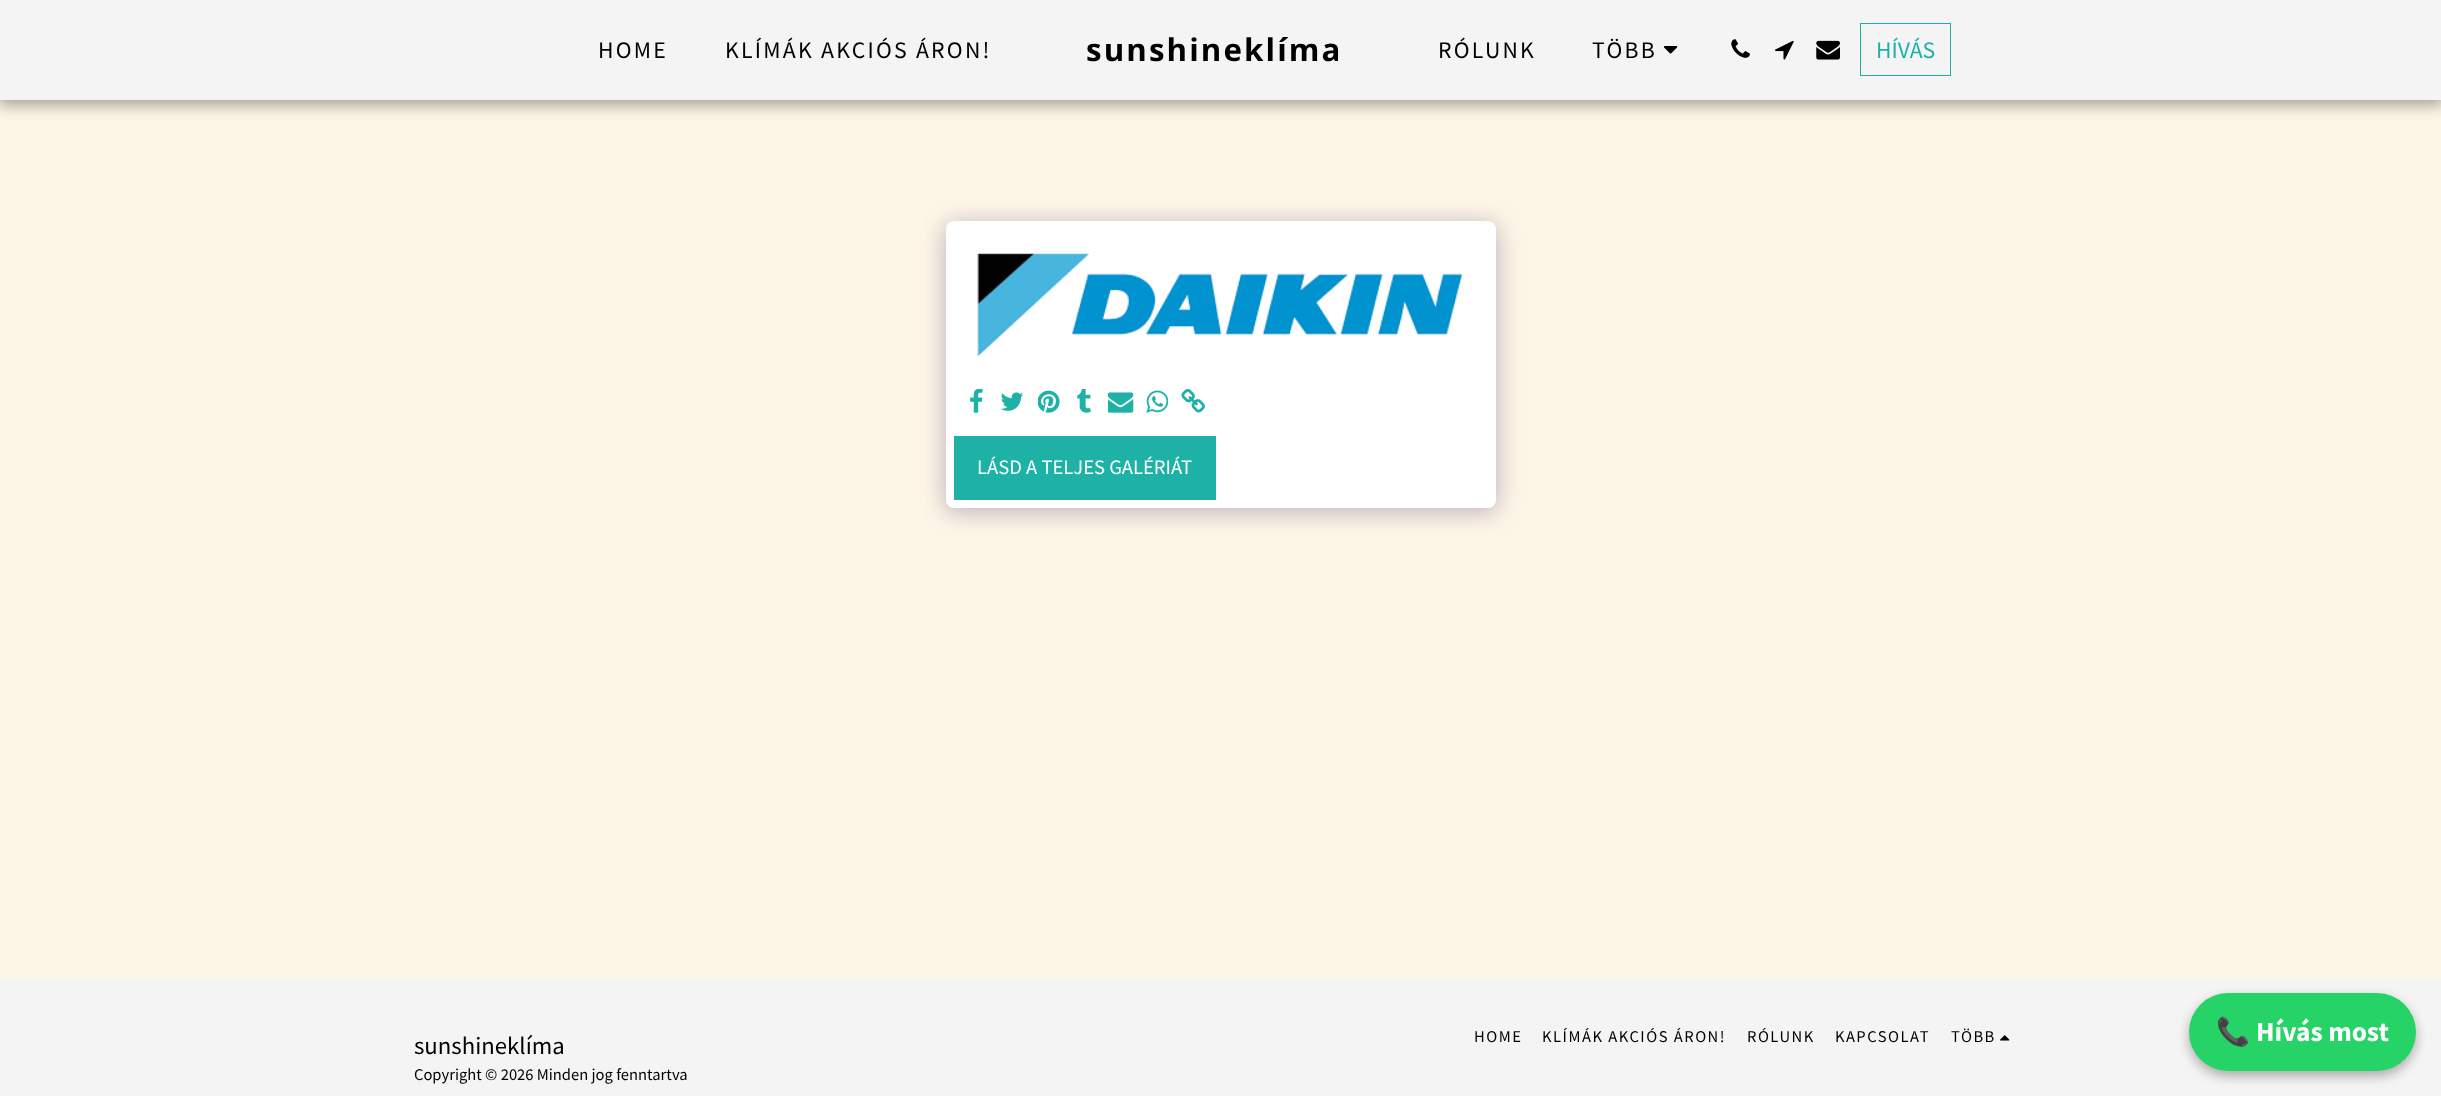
<!DOCTYPE html>
<meta charset="utf-8">
<style>body { margin: 0 } canvas { display: block }</style>
<canvas id="canvas" width="2441" height="1096"></canvas>
<img id="img1" src="img_01.png" hidden>
<img id="img2" src="img_02.png" hidden>
<img id="img3" src="img_03.png" hidden>
<img id="img4" src="img_04.png" hidden>
<img id="img5" src="img_05.png" hidden>
<img id="img6" src="img_06.png" hidden>
<img id="img7" src="img_07.png" hidden>
<img id="img8" src="img_08.png" hidden>
<img id="img9" src="img_09.png" hidden>
<img id="img10" src="img_10.png" hidden>
<img id="img11" src="img_11.png" hidden>
<img id="img12" src="img_12.png" hidden>
<img id="img13" src="img_13.png" hidden>
<script>
window.onload = function () {
	const canvas = document.getElementById("canvas");
	const ctx = canvas.getContext("2d");
	ctx.miterLimit = 4;
	ctx.fontKerning = "normal";
	function txt(s, x, y) {
		ctx.fillText(s, x, y);
	}
	function fill(x, y, w, h) {
		ctx.fillRect(x, y, w, h);
	}
	function round(x, y, w, h, r) {
		ctx.beginPath();
		ctx.roundRect(x, y, w, h, r);
		ctx.fill();
	}
	function img(id, x, y, w, h) {
		ctx.drawImage(document.getElementById(id), x, y, w, h);
	}

	ctx.fillStyle = "#FDF5E6";
	fill(0, 0, 2441, 1096);
	ctx.fillStyle = "rgba(0, 0, 0, 0.35)";
	ctx.filter = "blur(7.5px)";
	ctx.beginPath();
	ctx.rect(-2, 0, 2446, 105);
	ctx.fill();
	ctx.filter = "none";
	ctx.fillStyle = "#F4F4F4";
	fill(0, 0, 2441, 100);
	img("img1", 1664, 46, 14, 8);
	img("img2", 1731, 39, 19, 19);
	img("img3", 1775, 40, 19, 20);
	img("img4", 1816, 40, 24, 20);
	ctx.strokeStyle = "#1EB2A6";
	ctx.strokeRect(1860.5, 23.5, 90, 52);
	ctx.fillStyle = "rgba(77, 63, 122, 0.4)";
	ctx.filter = "blur(12.5px)";
	ctx.beginPath();
	ctx.roundRect(946, 225, 550, 286, 8);
	ctx.fill();
	ctx.filter = "none";
	ctx.fillStyle = "#FFFFFF";
	round(946, 221, 550, 287, 8);
	img("img5", 977, 253, 486, 104);
	img("img6", 970, 389, 13, 24);
	img("img7", 1000, 392, 24, 19);
	img("img8", 1038, 390, 22, 23);
	img("img9", 1077, 389, 14, 24);
	img("img10", 1108, 392, 26, 21);
	img("img11", 1146, 390, 22, 23);
	img("img12", 1181, 389, 24, 24);
	ctx.fillStyle = "#1EB2A6";
	fill(954, 436, 262, 64);
	ctx.fillStyle = "#F4F4F4";
	fill(0, 978, 2441, 118);
	img("img13", 2000, 1035, 10, 6);
	ctx.fillStyle = "rgba(0, 0, 0, 0.3)";
	ctx.filter = "blur(6px)";
	ctx.beginPath();
	ctx.roundRect(2189, 998, 227, 78, 39);
	ctx.fill();
	ctx.filter = "none";
	ctx.fillStyle = "#25D366";
	round(2189, 993, 227, 78, 39);
	ctx.letterSpacing = "2.25px";
	ctx.font = "23.75px Source Sans Pro";
	ctx.fillStyle = "#000000";
	txt("HOME", 598, 58);
	txt("KLÍMÁK AKCIÓS ÁRON!", 725, 58);
	ctx.letterSpacing = "2.1px";
	ctx.font = "bold 31.25px Open Sans";
	txt("sunshineklíma", 1086, 61);
	ctx.letterSpacing = "2.25px";
	ctx.font = "23.75px Source Sans Pro";
	txt("RÓLUNK", 1438, 58);
	txt("TÖBB", 1592, 58);
	ctx.letterSpacing = "0px";
	ctx.fillStyle = "#1EB2A6";
	txt("HÍVÁS", 1876, 58);
	ctx.font = "20.6px Source Sans Pro";
	ctx.fillStyle = "#FFFFFF";
	txt("LÁSD A TELJES GALÉRIÁT", 977, 474);
	ctx.font = "24.75px Source Sans Pro";
	ctx.fillStyle = "#000000";
	txt("sunshineklíma", 414, 1054);
	ctx.font = "16.5px Source Sans Pro";
	txt("Copyright © 2026 Minden jog fenntartva", 414, 1080);
	ctx.letterSpacing = "1.5px";
	txt("HOME", 1474, 1042);
	txt("KLÍMÁK AKCIÓS ÁRON!", 1542, 1042);
	txt("RÓLUNK", 1747, 1042);
	txt("KAPCSOLAT", 1835, 1042);
	txt("TÖBB", 1951, 1042);
	ctx.letterSpacing = "0px";
	ctx.font = "bold 27.5px Noto Color Emoji";
	ctx.fillStyle = "#FFFFFF";
	txt("📞", 2216, 1041);
	ctx.font = "bold 27.5px Source Sans Pro";
	txt("Hívás most", 2256, 1041);
};
</script>
